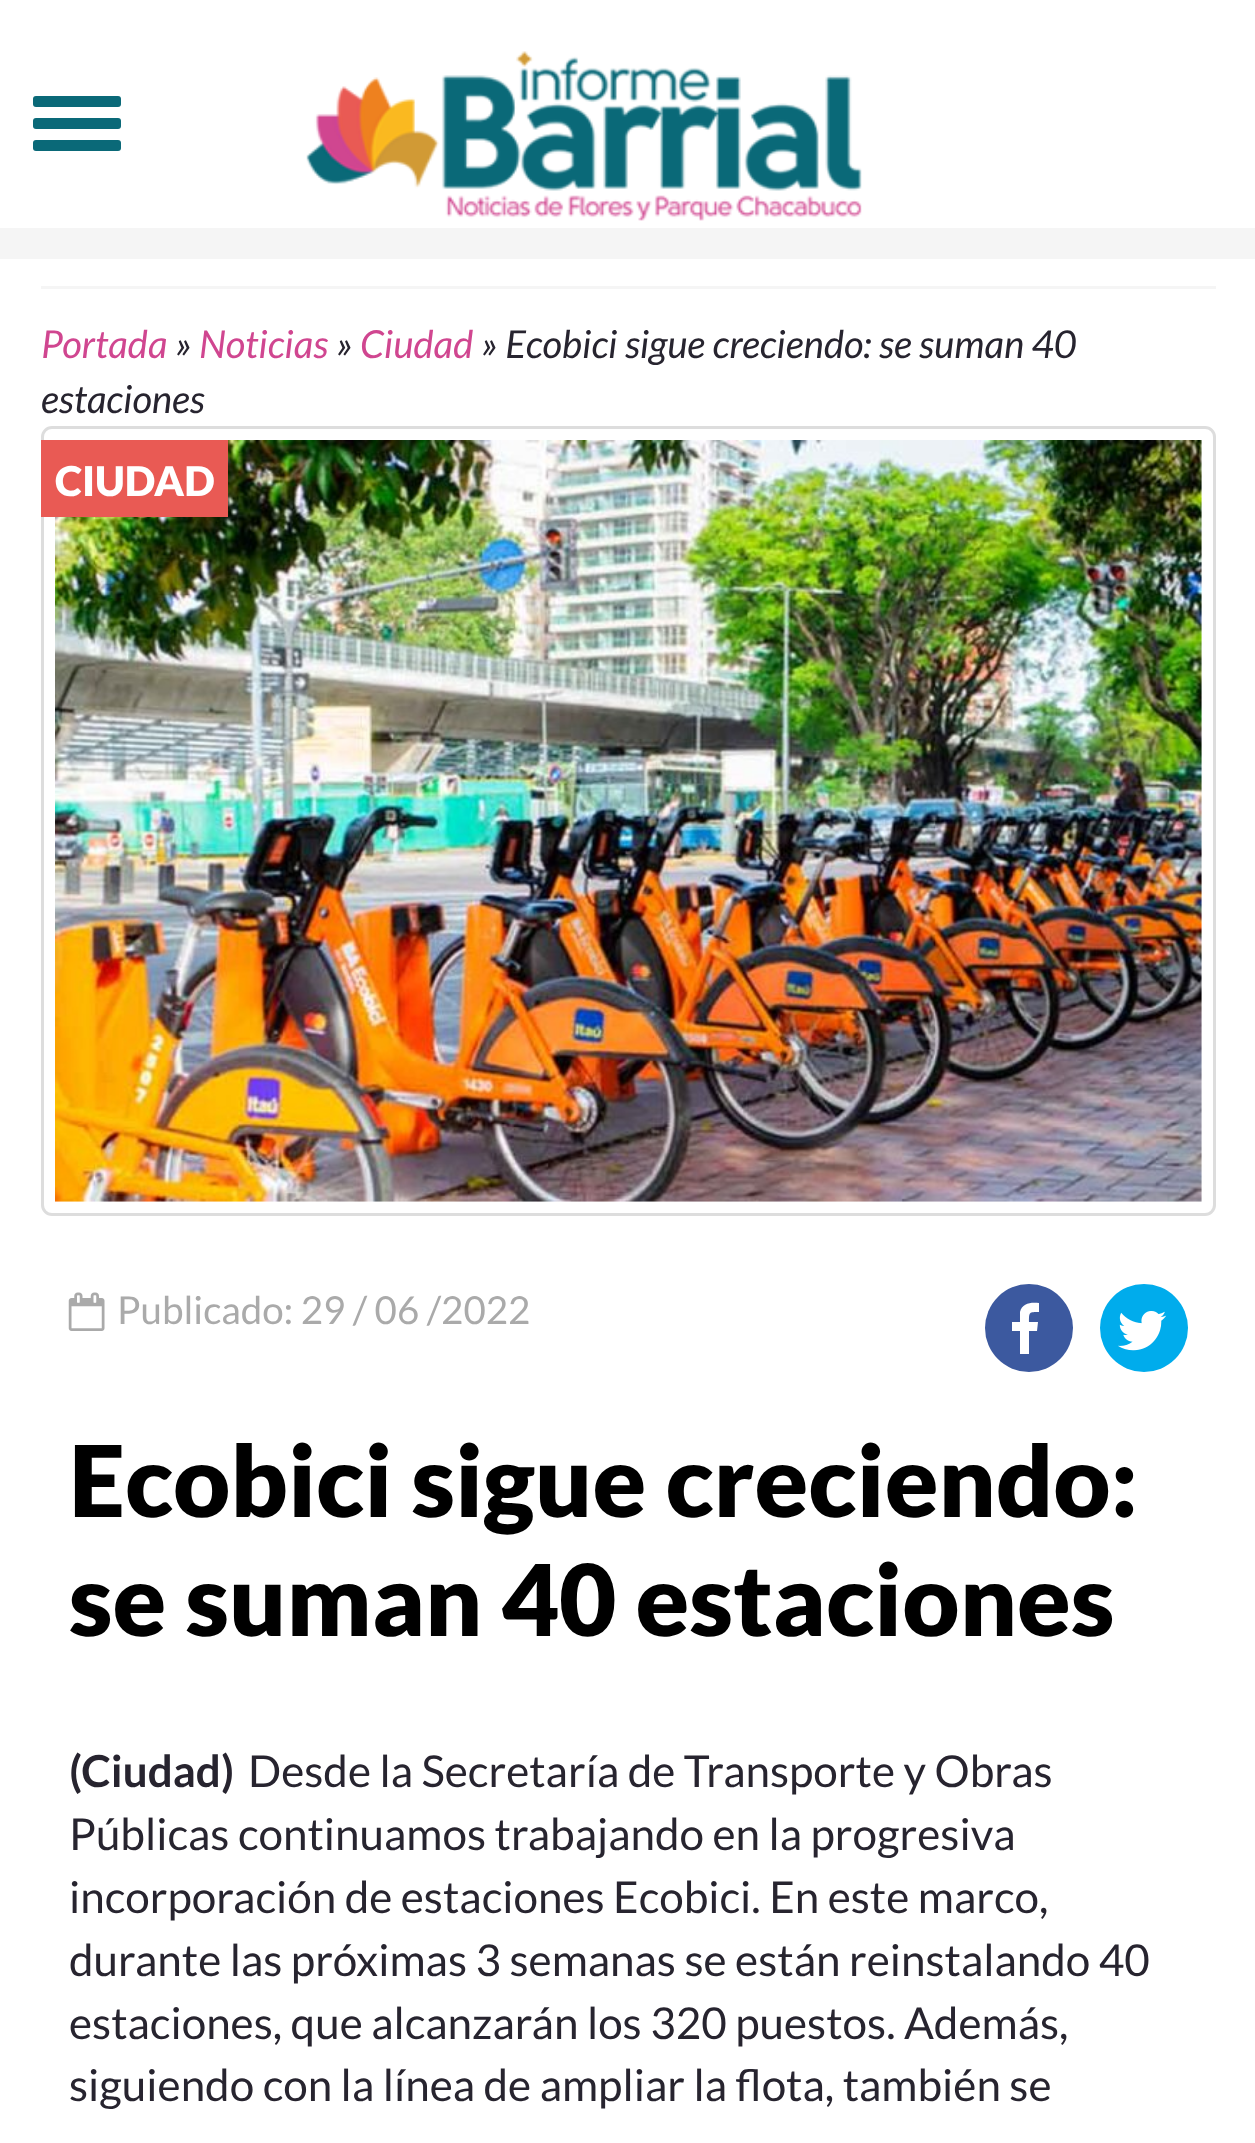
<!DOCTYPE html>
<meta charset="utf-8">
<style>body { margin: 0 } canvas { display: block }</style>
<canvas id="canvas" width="1255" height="2143"></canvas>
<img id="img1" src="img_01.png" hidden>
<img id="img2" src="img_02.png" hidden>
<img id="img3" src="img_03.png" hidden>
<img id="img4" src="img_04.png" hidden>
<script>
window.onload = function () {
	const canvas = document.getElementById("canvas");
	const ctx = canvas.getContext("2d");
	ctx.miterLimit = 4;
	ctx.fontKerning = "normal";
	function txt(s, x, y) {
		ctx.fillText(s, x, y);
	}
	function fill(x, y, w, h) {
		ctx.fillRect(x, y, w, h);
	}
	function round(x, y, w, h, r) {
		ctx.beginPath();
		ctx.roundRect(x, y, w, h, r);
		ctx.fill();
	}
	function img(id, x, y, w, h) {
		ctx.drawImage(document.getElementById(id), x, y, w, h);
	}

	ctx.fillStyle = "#F5F5F5";
	fill(0, 0, 1255, 2143);
	ctx.fillStyle = "#FFFFFF";
	fill(0, 0, 1255, 228);
	img("img1", 306, 51, 556, 170);
	ctx.fillStyle = "#0A6978";
	round(33, 96, 88, 11, 3);
	round(33, 118, 88, 11, 3);
	round(33, 140, 88, 11, 3);
	ctx.fillStyle = "#FFFFFF";
	fill(0, 259, 1255, 1884);
	ctx.fillStyle = "#F5F5F5";
	fill(41, 286, 1175, 3);
	ctx.beginPath();
	ctx.roundRect(42.5, 427.5, 1172, 787, 9.5);
	ctx.strokeStyle = "#DDDDDD";
	ctx.lineWidth = 3;
	ctx.stroke();
	img("img2", 55, 440, 1147, 762);
	ctx.fillStyle = "#E95A54";
	fill(41, 440, 187, 77);
	img("img3", 68, 1292, 37, 39);
	ctx.fillStyle = "#3C599F";
	ctx.beginPath();
	ctx.arc(1029, 1328, 44, 0, Math.PI * 2);
	ctx.fill();
	ctx.fillStyle = "#FFFFFF";
	ctx.beginPath();
	ctx.moveTo(1039, 1303);
	ctx.lineTo(1039, 1312);
	ctx.bezierCurveTo(1029, 1312, 1029, 1312, 1029, 1322);
	ctx.lineTo(1038, 1322);
	ctx.lineTo(1037, 1331);
	ctx.lineTo(1029, 1331);
	ctx.lineTo(1029, 1354);
	ctx.lineTo(1020, 1354);
	ctx.lineTo(1020, 1331);
	ctx.lineTo(1012, 1331);
	ctx.lineTo(1012, 1322);
	ctx.lineTo(1020, 1322);
	ctx.lineTo(1020, 1312);
	ctx.bezierCurveTo(1022, 1303, 1031, 1302, 1039, 1303);
	ctx.closePath();
	ctx.fill();
	ctx.fillStyle = "#00ACEC";
	ctx.beginPath();
	ctx.arc(1144, 1328, 44, 0, Math.PI * 2);
	ctx.fill();
	img("img4", 1118, 1311, 49, 40);
	ctx.font = "italic 38.5px Lato";
	ctx.fillStyle = "#D04690";
	txt("Portada", 41, 358);
	ctx.fillStyle = "#27242F";
	txt("»", 175, 358);
	ctx.fillStyle = "#D04690";
	txt("Noticias", 199, 358);
	ctx.fillStyle = "#27242F";
	txt("»", 336, 358);
	ctx.fillStyle = "#D04690";
	txt("Ciudad", 360, 358);
	ctx.fillStyle = "#27242F";
	txt("» Ecobici sigue creciendo: se suman 40", 481, 358);
	txt("estaciones", 41, 413);
	ctx.font = "900 41px Lato";
	ctx.fillStyle = "#FFFFFF";
	txt("CIUDAD", 55, 496);
	ctx.font = "38.5px Lato";
	ctx.fillStyle = "#AAAAAA";
	txt("Publicado: 29 / 06 /2022", 117, 1324);
	ctx.font = "900 99px Lato";
	ctx.fillStyle = "#000000";
	txt("Ecobici sigue creciendo:", 69, 1517);
	txt("se suman 40 estaciones", 69, 1636);
	ctx.font = "bold 44px Lato";
	ctx.fillStyle = "#27242F";
	txt("(Ciudad)", 69, 1787);
	ctx.font = "44px Lato";
	txt("Desde la Secretaría de Transporte y Obras", 248, 1787);
	txt("Públicas continuamos trabajando en la progresiva", 69, 1850);
	txt("incorporación de estaciones Ecobici. En este marco,", 69, 1913);
	txt("durante las próximas 3 semanas se están reinstalando 40", 69, 1976);
	txt("estaciones, que alcanzarán los 320 puestos. Además,", 69, 2039);
	txt("siguiendo con la línea de ampliar la flota, también se", 69, 2101);
};
</script>
